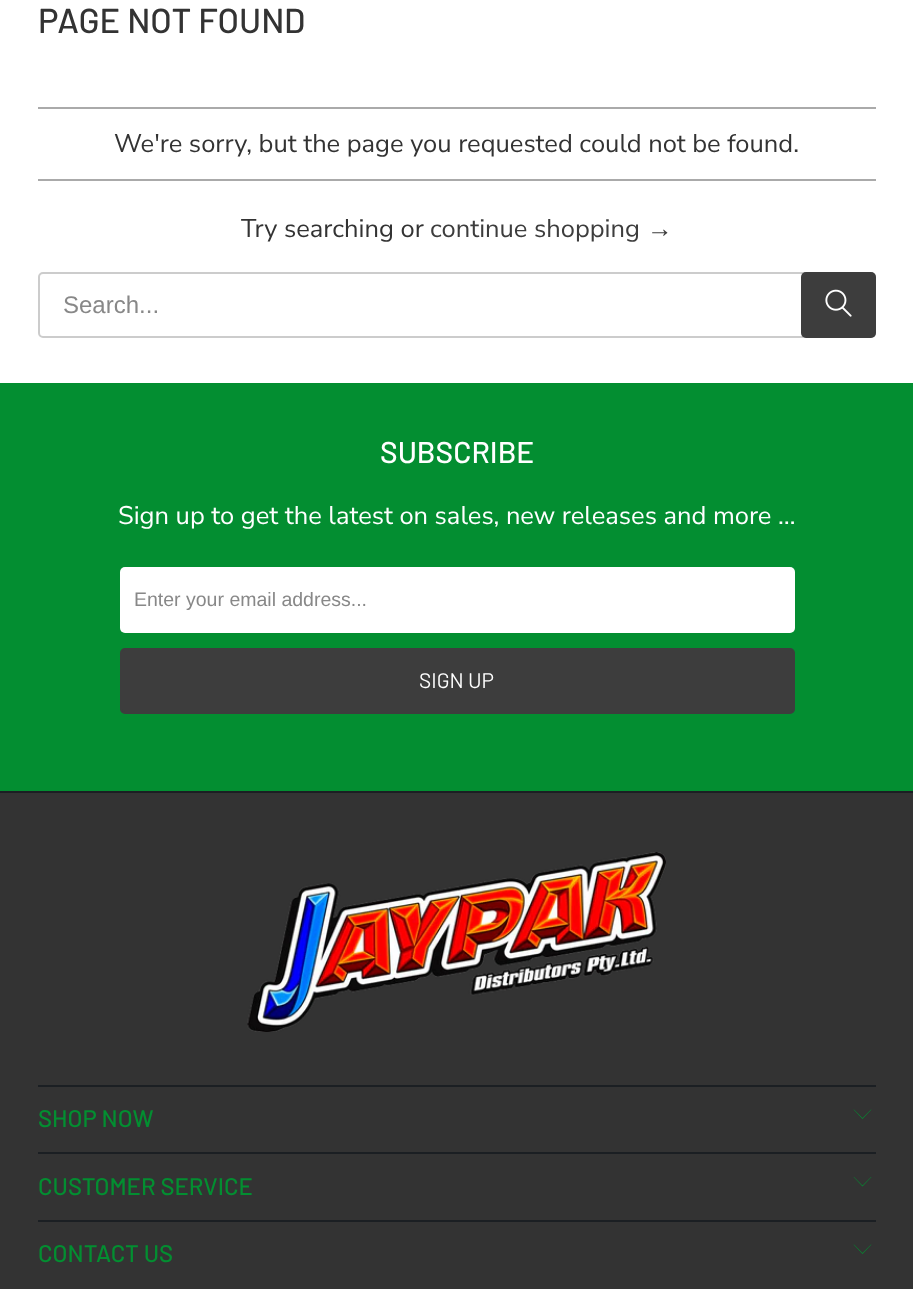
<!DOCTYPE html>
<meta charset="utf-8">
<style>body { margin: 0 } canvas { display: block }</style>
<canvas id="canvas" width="913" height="1289"></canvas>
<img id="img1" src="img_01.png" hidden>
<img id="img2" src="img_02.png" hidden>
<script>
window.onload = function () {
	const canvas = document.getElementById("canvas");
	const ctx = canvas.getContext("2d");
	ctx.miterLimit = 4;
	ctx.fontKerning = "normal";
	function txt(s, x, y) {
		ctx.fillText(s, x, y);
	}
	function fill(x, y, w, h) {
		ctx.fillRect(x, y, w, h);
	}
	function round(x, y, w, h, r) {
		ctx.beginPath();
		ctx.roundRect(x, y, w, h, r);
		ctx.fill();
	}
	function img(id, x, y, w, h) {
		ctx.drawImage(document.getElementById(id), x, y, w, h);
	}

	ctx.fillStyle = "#FFFFFF";
	fill(0, 0, 913, 1289);
	ctx.fillStyle = "#AAAAAA";
	fill(38, 107, 838, 2);
	fill(38, 179, 838, 2);
	ctx.beginPath();
	ctx.roundRect(39, 273, 836, 64, 4);
	ctx.strokeStyle = "#CCCCCC";
	ctx.lineWidth = 2;
	ctx.stroke();
	ctx.fillStyle = "#3D3D3D";
	round(801, 272, 75, 66, 5);
	img("img1", 825, 289, 27, 28);
	ctx.fillStyle = "#038E31";
	fill(0, 383, 913, 408);
	ctx.fillStyle = "#FFFFFF";
	round(120, 567, 675, 66, 5);
	ctx.fillStyle = "#3D3D3D";
	ctx.beginPath();
	ctx.roundRect(121, 649, 673, 64, 4);
	ctx.fill();
	ctx.strokeStyle = "#3D3D3D";
	ctx.stroke();
	ctx.fillStyle = "#333333";
	fill(0, 793, 913, 496);
	ctx.fillStyle = "#1B1F23";
	fill(0, 791, 913, 2);
	img("img2", 247, 852, 419, 180);
	fill(38, 1085, 838, 2);
	ctx.fillStyle = "#038E31";
	ctx.beginPath();
	ctx.moveTo(862.5, 1119);
	ctx.lineTo(853.5, 1109.5);
	ctx.lineTo(854, 1109.5);
	ctx.lineTo(862.5, 1118);
	ctx.lineTo(871, 1109.5);
	ctx.lineTo(871.5, 1109.5);
	ctx.closePath();
	ctx.fill();
	ctx.fillStyle = "#1B1F23";
	fill(38, 1152, 838, 2);
	ctx.fillStyle = "#038E31";
	ctx.beginPath();
	ctx.moveTo(862.5, 1186.5);
	ctx.lineTo(853.5, 1177);
	ctx.lineTo(854, 1177);
	ctx.lineTo(862.5, 1185.5);
	ctx.lineTo(871, 1177);
	ctx.lineTo(871.5, 1177);
	ctx.closePath();
	ctx.fill();
	ctx.fillStyle = "#1B1F23";
	fill(38, 1220, 838, 2);
	ctx.fillStyle = "#038E31";
	ctx.beginPath();
	ctx.moveTo(862.5, 1254);
	ctx.lineTo(853.5, 1244.5);
	ctx.lineTo(854, 1244.5);
	ctx.lineTo(862.5, 1253);
	ctx.lineTo(871, 1244.5);
	ctx.lineTo(871.5, 1244.5);
	ctx.closePath();
	ctx.fill();
	ctx.font = "500 34.5px Barlow";
	ctx.fillStyle = "#333333";
	txt("PAGE NOT FOUND", 38, 33);
	ctx.font = "25.5px Nunito Sans";
	txt("We're sorry, but the page you requested could not be found.", 114, 152);
	txt("Try searching or", 241, 237);
	ctx.fillStyle = "#3D3D3D";
	txt("continue shopping", 430, 237);
	ctx.font = "25.5px Liberation Sans";
	txt("→", 647, 237);
	ctx.font = "24px Liberation Sans";
	ctx.fillStyle = "#888888";
	txt("Search...", 63, 313);
	ctx.font = "500 30px Barlow";
	ctx.fillStyle = "#FFFFFF";
	txt("SUBSCRIBE", 380, 463);
	ctx.font = "25.5px Nunito Sans";
	txt("Sign up to get the latest on sales, new releases and more …", 118, 524);
	ctx.font = "19.5px Liberation Sans";
	ctx.fillStyle = "#888888";
	txt("Enter your email address...", 134, 606);
	ctx.font = "21px Barlow";
	ctx.fillStyle = "#FFFFFF";
	txt("SIGN UP", 419, 688);
	ctx.font = "500 24px Barlow";
	ctx.fillStyle = "#038E31";
	txt("SHOP NOW", 38, 1127);
	txt("CUSTOMER SERVICE", 38, 1195);
	txt("CONTACT US", 38, 1262);
};
</script>
